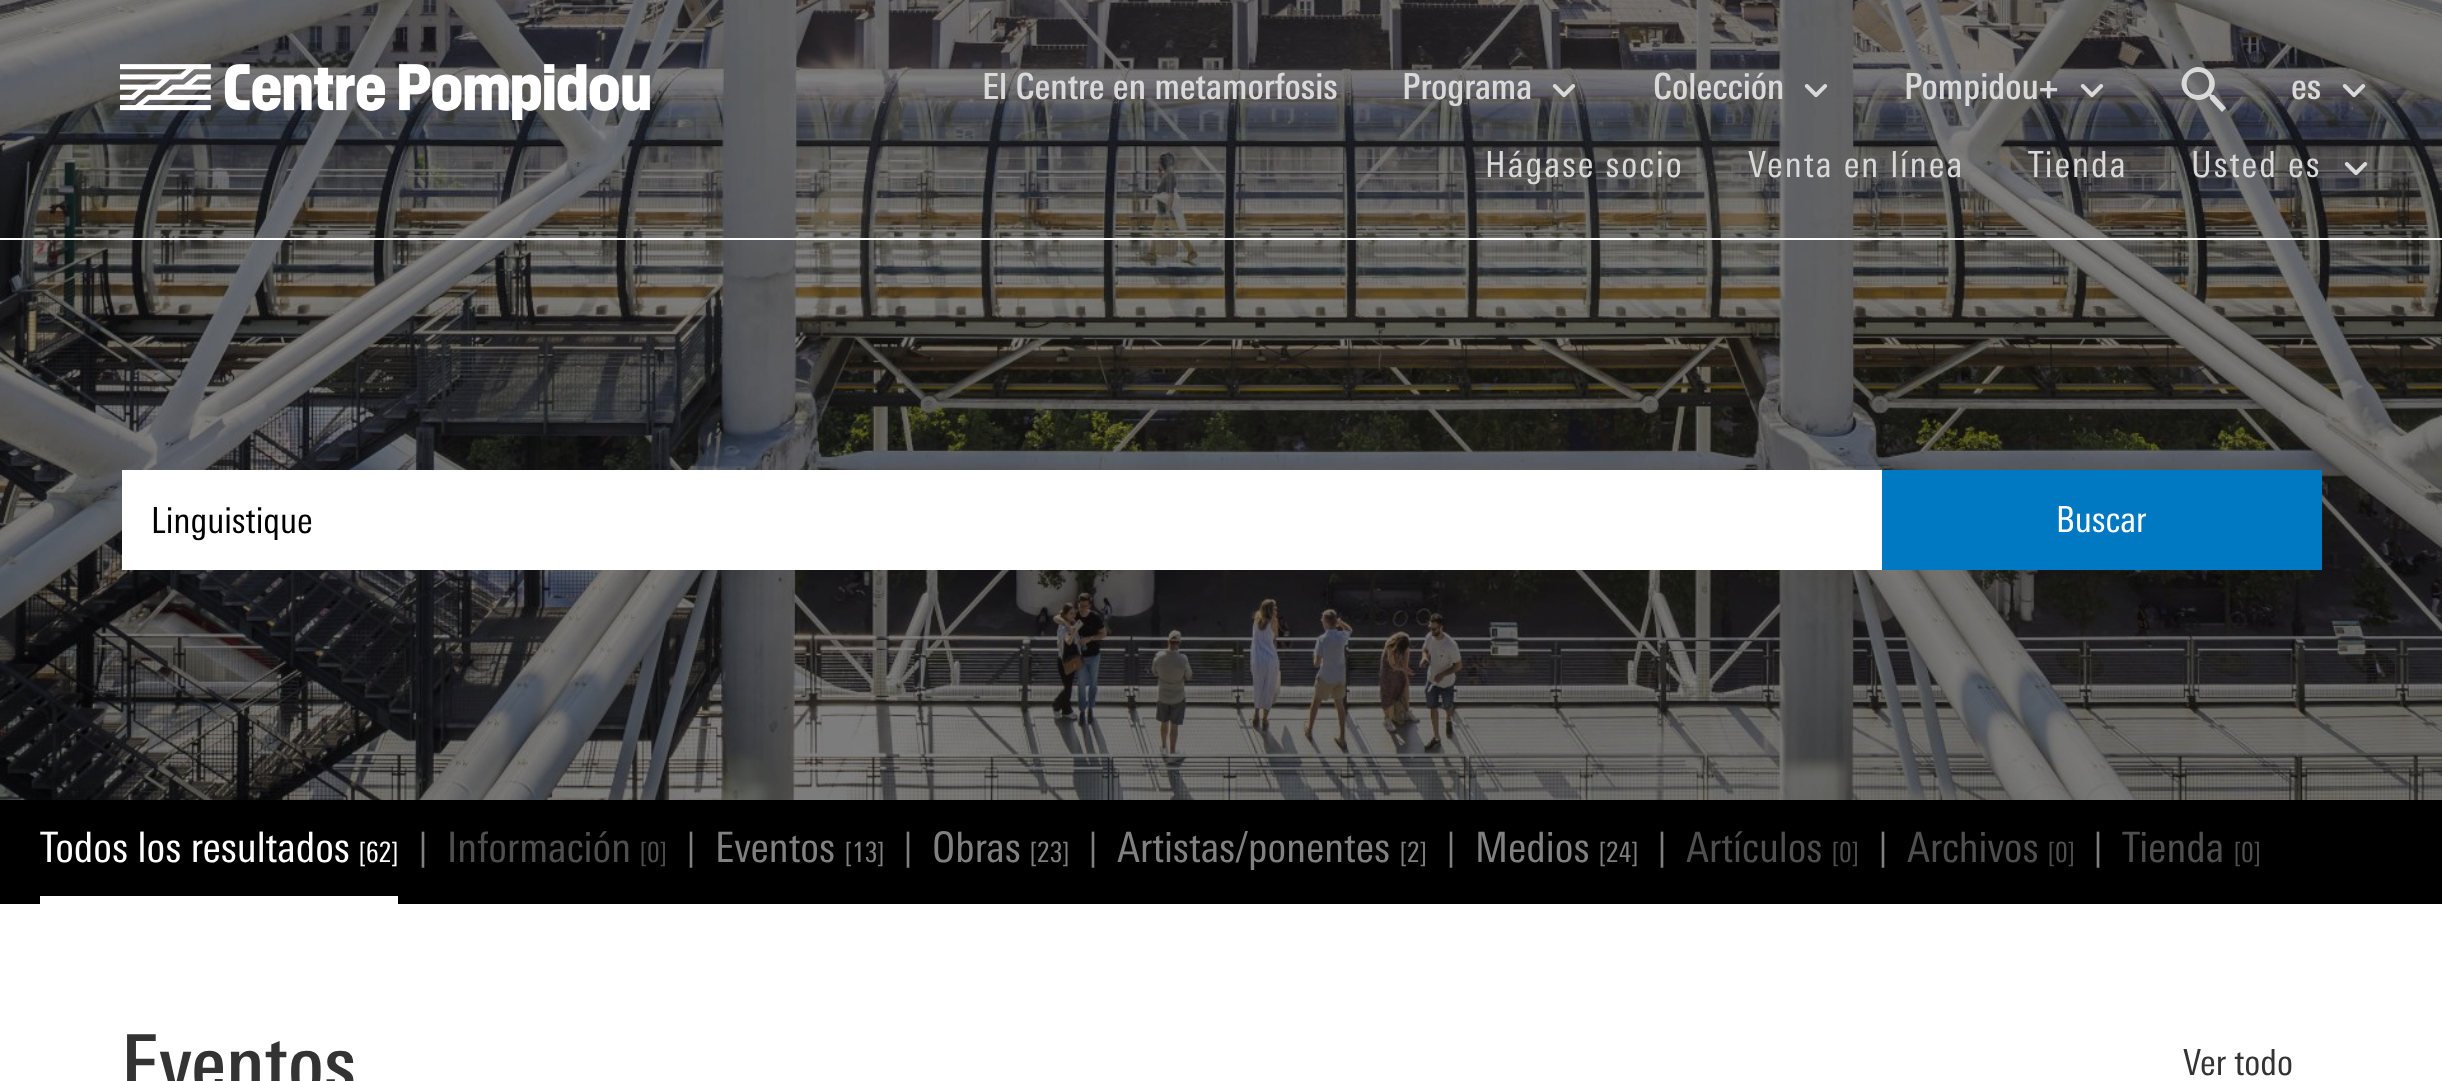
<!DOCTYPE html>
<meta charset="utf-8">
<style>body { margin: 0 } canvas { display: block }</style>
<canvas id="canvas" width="2442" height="1081"></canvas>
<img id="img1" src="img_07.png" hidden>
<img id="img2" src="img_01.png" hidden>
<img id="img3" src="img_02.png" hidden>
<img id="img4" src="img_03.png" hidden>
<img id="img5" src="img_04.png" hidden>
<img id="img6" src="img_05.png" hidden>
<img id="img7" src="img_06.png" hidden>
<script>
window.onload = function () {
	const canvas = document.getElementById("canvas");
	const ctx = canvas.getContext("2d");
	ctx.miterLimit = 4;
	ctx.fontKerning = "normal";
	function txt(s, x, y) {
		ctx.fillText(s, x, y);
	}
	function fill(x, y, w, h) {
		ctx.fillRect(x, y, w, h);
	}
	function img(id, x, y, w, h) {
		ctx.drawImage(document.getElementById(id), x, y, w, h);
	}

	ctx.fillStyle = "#FFFFFF";
	fill(0, 0, 2442, 1081);
	img("img1", 0, 0, 2442, 800);
	fill(0, 238, 2442, 2);
	img("img2", 120, 64, 530, 56);
	img("img3", 1552, 84, 24, 14);
	img("img4", 1804, 84, 24, 14);
	img("img5", 2080, 84, 24, 14);
	ctx.fillStyle = "#D9D9D9";
	ctx.beginPath();
	ctx.moveTo(2198, 95);
	ctx.bezierCurveTo(2183, 95, 2183, 72, 2198, 72);
	ctx.bezierCurveTo(2213, 72, 2213, 95, 2198, 95);
	ctx.closePath();
	ctx.moveTo(2214, 95);
	ctx.lineTo(2212, 95);
	ctx.lineTo(2211, 94);
	ctx.bezierCurveTo(2224, 79, 2202, 57, 2187, 72);
	ctx.bezierCurveTo(2171, 87, 2194, 109, 2209, 96);
	ctx.lineTo(2210, 97);
	ctx.lineTo(2210, 99);
	ctx.lineTo(2222, 112);
	ctx.lineTo(2226, 108);
	ctx.closePath();
	ctx.fill("evenodd");
	img("img6", 2342, 84, 24, 14);
	img("img7", 2344, 162, 24, 14);
	ctx.fillStyle = "#FFFFFF";
	fill(122, 470, 1760, 100);
	ctx.fillStyle = "#0078C2";
	fill(1882, 470, 440, 100);
	ctx.fillStyle = "#000000";
	fill(0, 800, 2442, 104);
	ctx.fillStyle = "#FFFFFF";
	fill(40, 896, 358, 8);
	ctx.font = "500 36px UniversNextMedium";
	ctx.fillStyle = "#D9D9D9";
	txt("El Centre en metamorfosis", 982, 99);
	txt("Programa", 1402, 99);
	txt("Colección", 1653, 99);
	txt("Pompidou+", 1904, 99);
	txt("es", 2291, 99);
	ctx.letterSpacing = "2px";
	ctx.font = "36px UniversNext";
	txt("Hágase socio", 1485, 177);
	txt("Venta en línea", 1748, 177);
	txt("Tienda", 2028, 177);
	txt("Usted es", 2191, 177);
	ctx.letterSpacing = "0px";
	ctx.fillStyle = "#000000";
	txt("Linguistique", 151, 533);
	ctx.fillStyle = "#FFFFFF";
	txt("Buscar", 2056, 532);
	ctx.font = "42px UniversNext";
	txt("Todos los resultados", 40, 862);
	ctx.font = "28px UniversNext";
	txt("[62]", 359, 862);
	ctx.font = "36px UniversNext";
	ctx.fillStyle = "#808080";
	txt("|", 419, 860);
	ctx.font = "42px UniversNext";
	ctx.fillStyle = "#4E4E4E";
	txt("Información", 447, 862);
	ctx.font = "28px UniversNext";
	txt("[0]", 640, 862);
	ctx.font = "36px UniversNext";
	ctx.fillStyle = "#808080";
	txt("|", 687, 860);
	ctx.font = "42px UniversNext";
	txt("Eventos", 715, 862);
	ctx.font = "28px UniversNext";
	txt("[13]", 845, 862);
	ctx.font = "36px UniversNext";
	txt("|", 904, 860);
	ctx.font = "42px UniversNext";
	txt("Obras", 932, 862);
	ctx.font = "28px UniversNext";
	txt("[23]", 1030, 862);
	ctx.font = "36px UniversNext";
	txt("|", 1089, 860);
	ctx.font = "42px UniversNext";
	txt("Artistas/ponentes", 1117, 862);
	ctx.font = "28px UniversNext";
	txt("[2]", 1400, 862);
	ctx.font = "36px UniversNext";
	txt("|", 1447, 860);
	ctx.font = "42px UniversNext";
	txt("Medios", 1475, 862);
	ctx.font = "28px UniversNext";
	txt("[24]", 1599, 862);
	ctx.font = "36px UniversNext";
	txt("|", 1658, 860);
	ctx.font = "42px UniversNext";
	ctx.fillStyle = "#4E4E4E";
	txt("Artículos", 1686, 862);
	ctx.font = "28px UniversNext";
	txt("[0]", 1832, 862);
	ctx.font = "36px UniversNext";
	ctx.fillStyle = "#808080";
	txt("|", 1879, 860);
	ctx.font = "42px UniversNext";
	ctx.fillStyle = "#4E4E4E";
	txt("Archivos", 1907, 862);
	ctx.font = "28px UniversNext";
	txt("[0]", 2048, 862);
	ctx.font = "36px UniversNext";
	ctx.fillStyle = "#808080";
	txt("|", 2094, 860);
	ctx.font = "42px UniversNext";
	ctx.fillStyle = "#4E4E4E";
	txt("Tienda", 2122, 862);
	ctx.font = "28px UniversNext";
	txt("[0]", 2234, 862);
	ctx.font = "500 80px UniversNextMedium";
	ctx.fillStyle = "#333333";
	txt("Eventos", 121, 1092);
	ctx.font = "36px UniversNext";
	txt("Ver todo", 2183, 1075);
};
</script>
